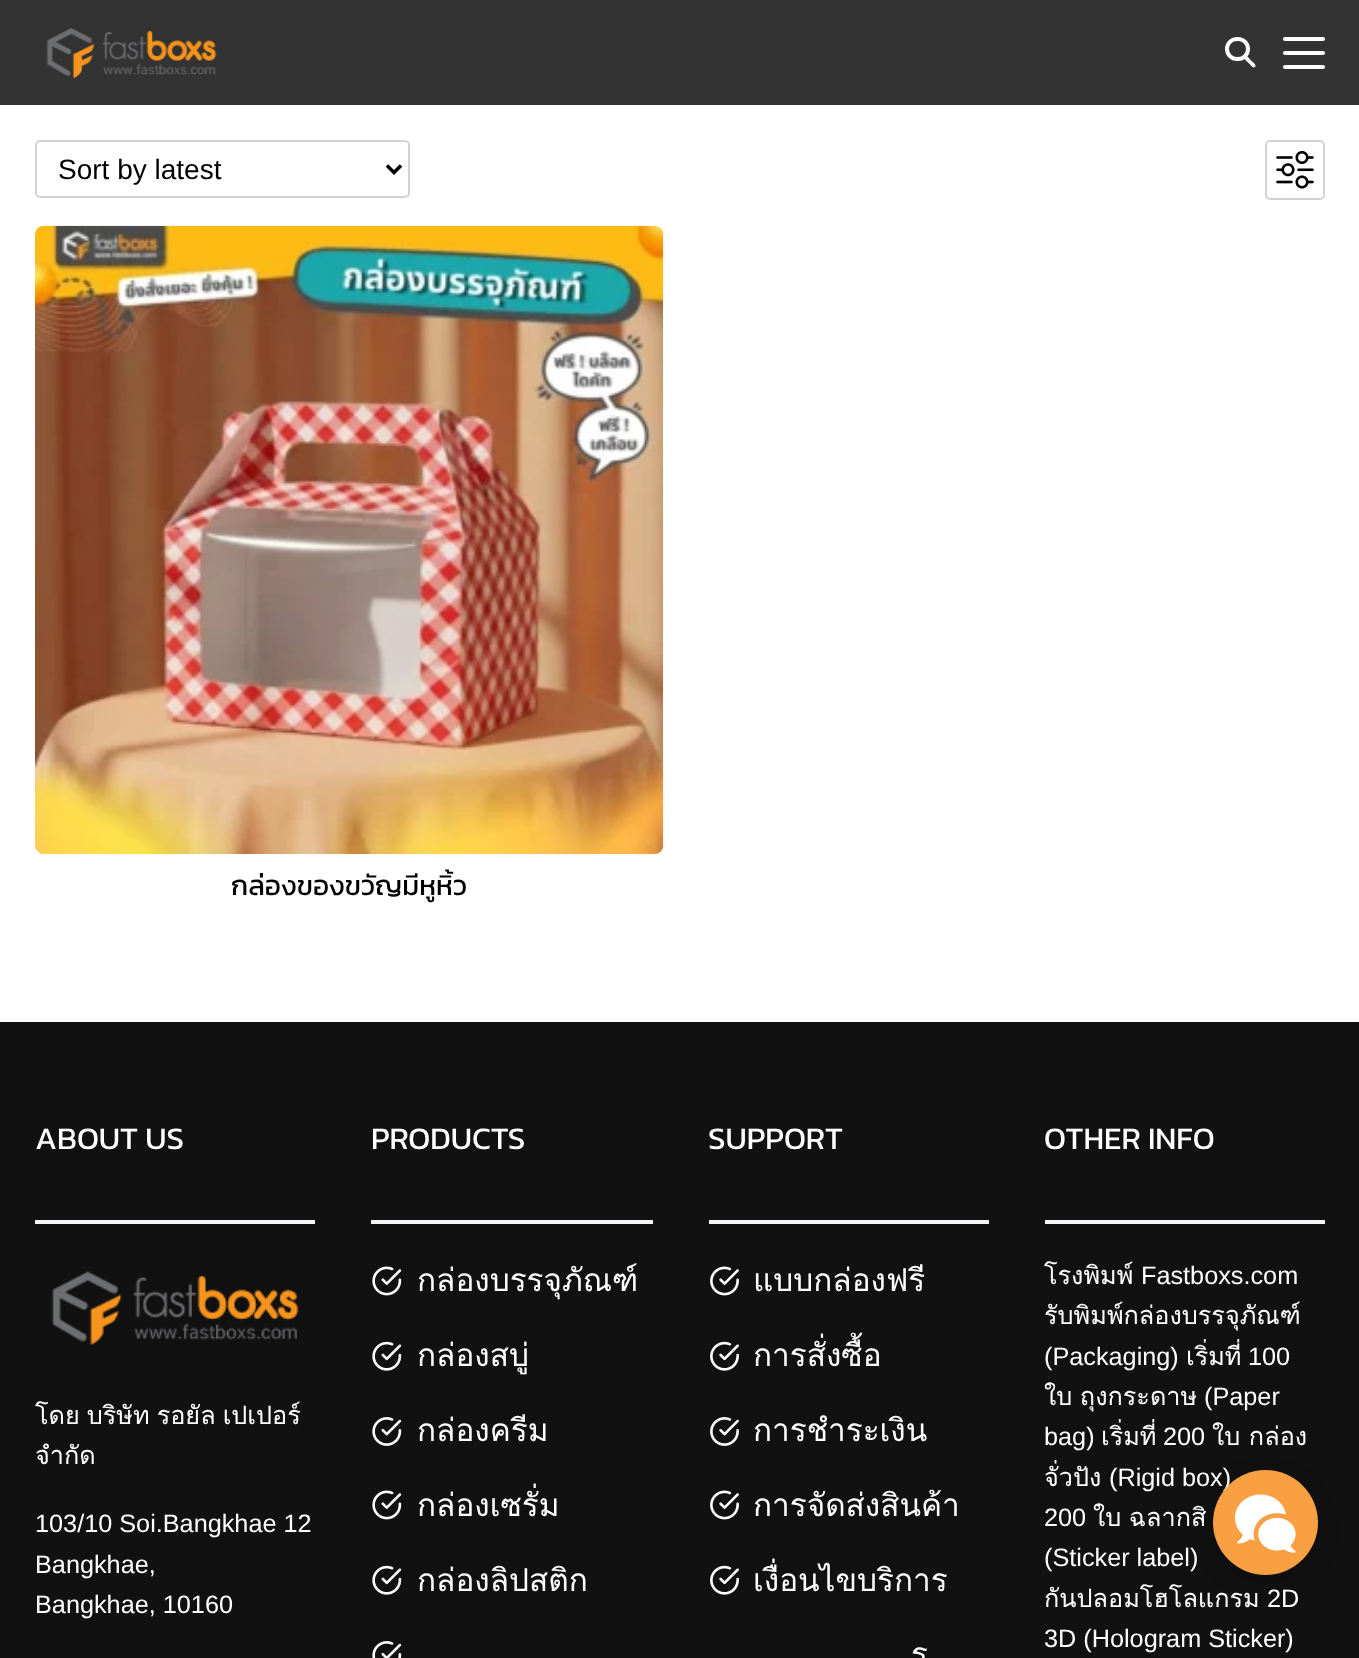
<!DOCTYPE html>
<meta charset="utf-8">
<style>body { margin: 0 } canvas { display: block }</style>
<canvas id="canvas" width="1359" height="1658"></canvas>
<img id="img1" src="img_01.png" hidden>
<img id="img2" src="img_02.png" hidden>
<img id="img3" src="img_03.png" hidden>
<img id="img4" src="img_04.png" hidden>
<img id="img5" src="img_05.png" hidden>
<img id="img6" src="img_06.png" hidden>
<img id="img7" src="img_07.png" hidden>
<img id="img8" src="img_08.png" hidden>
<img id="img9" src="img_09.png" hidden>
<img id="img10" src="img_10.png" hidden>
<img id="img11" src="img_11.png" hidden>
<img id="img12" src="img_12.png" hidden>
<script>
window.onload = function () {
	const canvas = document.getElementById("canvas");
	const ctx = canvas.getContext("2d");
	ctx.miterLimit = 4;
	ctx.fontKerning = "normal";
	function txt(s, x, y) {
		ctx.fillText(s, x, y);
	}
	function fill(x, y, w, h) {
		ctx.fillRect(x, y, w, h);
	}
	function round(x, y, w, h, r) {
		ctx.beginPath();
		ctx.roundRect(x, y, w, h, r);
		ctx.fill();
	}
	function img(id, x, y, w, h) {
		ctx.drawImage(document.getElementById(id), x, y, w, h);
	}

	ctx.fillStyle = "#FFFFFF";
	fill(0, 0, 1359, 1658);
	ctx.fillStyle = "#333333";
	fill(0, 0, 1359, 105);
	img("img1", 46, 28, 171, 51);
	ctx.fillStyle = "#FFFFFF";
	ctx.beginPath();
	ctx.moveTo(1245, 56.5);
	ctx.bezierCurveTo(1247, 54.5, 1250, 59.5, 1251, 60.5);
	ctx.bezierCurveTo(1252.5, 61.5, 1257, 65, 1255, 67);
	ctx.bezierCurveTo(1253, 69, 1250, 64, 1248.5, 63);
	ctx.bezierCurveTo(1247.5, 62, 1243, 58.5, 1245, 56.5);
	ctx.closePath();
	ctx.fill();
	ctx.beginPath();
	ctx.roundRect(1227, 39, 21, 20, 10);
	ctx.strokeStyle = "#FFFFFF";
	ctx.lineWidth = 4;
	ctx.stroke();
	round(1283, 51, 42, 4, 2);
	round(1283, 37, 42, 4, 2);
	round(1283, 65, 42, 4, 2);
	ctx.beginPath();
	ctx.roundRect(36, 141, 373, 56, 4);
	ctx.strokeStyle = "#D2D2D7";
	ctx.lineWidth = 2;
	ctx.stroke();
	ctx.beginPath();
	ctx.moveTo(387, 165.5);
	ctx.lineTo(394, 172.5);
	ctx.lineTo(401, 165.5);
	ctx.strokeStyle = "#000000";
	ctx.lineWidth = 3.5;
	ctx.stroke();
	ctx.beginPath();
	ctx.roundRect(1266, 141, 58, 58, 4);
	ctx.strokeStyle = "#D2D2D7";
	ctx.lineWidth = 2;
	ctx.stroke();
	img("img2", 1276, 151, 38, 38);
	img("img3", 35, 225, 629, 629);
	ctx.fillStyle = "#111111";
	fill(0, 1022, 1359, 636);
	ctx.fillStyle = "#F5F5F7";
	fill(35, 1220, 280, 4);
	img("img4", 51, 1271, 248, 74);
	fill(371, 1220, 282, 4);
	img("img5", 372, 1266, 30, 30);
	img("img6", 372, 1341, 30, 30);
	img("img7", 372, 1417, 30, 29);
	img("img5", 372, 1490, 30, 30);
	img("img6", 372, 1565, 30, 30);
	img("img8", 372, 1641, 30, 17);
	fill(709, 1220, 280, 4);
	img("img9", 710, 1266, 29, 30);
	img("img10", 710, 1341, 29, 30);
	img("img11", 710, 1417, 29, 29);
	img("img9", 710, 1490, 29, 30);
	img("img10", 710, 1565, 29, 30);
	fill(1045, 1220, 280, 4);
	ctx.fillStyle = "rgba(0, 0, 0, 0.15)";
	ctx.filter = "blur(10.5px)";
	ctx.beginPath();
	ctx.roundRect(1213, 1477, 105, 105, 52.5);
	ctx.fill();
	ctx.filter = "none";
	ctx.font = "28px Liberation Sans";
	ctx.fillStyle = "#000000";
	txt("Sort by latest", 58, 179);
	ctx.font = "28px Kanit";
	txt("กล่องของขวัญมีหูหิ้ว", 231, 895);
	ctx.font = "31.5px Kanit";
	ctx.fillStyle = "#FFFFFF";
	txt("ABOUT US", 35, 1149);
	ctx.wordSpacing = "-1.5px";
	ctx.font = "25.25px Loma";
	txt("โดย บริษัท รอยัล เปเปอร์", 35, 1424);
	ctx.wordSpacing = "0px";
	txt("จำกัด", 35, 1464);
	ctx.font = "25.25px Liberation Sans";
	txt("103/10 Soi.Bangkhae 12", 35, 1532);
	txt("Bangkhae,", 35, 1573);
	txt("Bangkhae, 10160", 35, 1613);
	ctx.font = "31.5px Kanit";
	txt("PRODUCTS", 371, 1149);
	ctx.font = "31.5px Loma";
	txt("กล่องบรรจุภัณฑ์", 417, 1291);
	txt("กล่องสบู่", 417, 1366);
	txt("กล่องครีม", 417, 1441);
	txt("กล่องเซรั่ม", 417, 1516);
	txt("กล่องลิปสติก", 417, 1591);
	ctx.font = "31.5px Kanit";
	txt("SUPPORT", 708, 1149);
	ctx.font = "31.5px Loma";
	txt("แบบกล่องฟรี", 753, 1291);
	txt("การสั่งซื้อ", 753, 1366);
	txt("การชำระเงิน", 753, 1441);
	txt("การจัดส่งสินค้า", 753, 1516);
	txt("เงื่อนไขบริการ", 753, 1591);
	txt("ร", 911, 1665);
	ctx.font = "31.5px Kanit";
	txt("OTHER INFO", 1044, 1149);
	ctx.font = "25.25px Loma";
	txt("โรงพิมพ์", 1044, 1284);
	ctx.font = "25.25px Liberation Sans";
	txt("Fastboxs.com", 1141, 1284);
	ctx.font = "25.25px Loma";
	txt("รับพิมพ์กล่องบรรจุภัณฑ์", 1044, 1324);
	ctx.font = "25.25px Liberation Sans";
	txt("(Packaging)", 1044, 1365);
	ctx.font = "25.25px Loma";
	txt("เริ่มที่", 1186, 1365);
	ctx.font = "25.25px Liberation Sans";
	txt("100", 1248, 1365);
	ctx.wordSpacing = "-1px";
	ctx.font = "25.25px Loma";
	txt("ใบ ถุงกระดาษ", 1044, 1405);
	ctx.wordSpacing = "0px";
	ctx.font = "25.25px Liberation Sans";
	txt("(Paper", 1204, 1405);
	txt("bag)", 1044, 1445);
	ctx.font = "25.25px Loma";
	txt("เริ่มที่", 1101, 1445);
	ctx.font = "25.25px Liberation Sans";
	txt("200", 1163, 1445);
	ctx.font = "25.25px Loma";
	txt("ใบ กล่อง", 1212, 1445);
	txt("จั่วปัง", 1044, 1486);
	ctx.font = "25.25px Liberation Sans";
	txt("(Rigid box)", 1109, 1486);
	txt("200", 1044, 1526);
	ctx.wordSpacing = "-1px";
	ctx.font = "25.25px Loma";
	txt("ใบ ฉลากสิ", 1093, 1526);
	ctx.wordSpacing = "0px";
	ctx.font = "25.25px Liberation Sans";
	txt("(Sticker label)", 1044, 1566);
	ctx.font = "25.25px Loma";
	txt("กันปลอมโฮโลแกรม", 1044, 1607);
	ctx.font = "25.25px Liberation Sans";
	txt("2D", 1267, 1607);
	txt("3D (Hologram Sticker)", 1044, 1647);
	ctx.fillStyle = "#F8A042";
	ctx.beginPath();
	ctx.arc(1265.5, 1522.5, 52.5, 0, Math.PI * 2);
	ctx.fill();
	img("img12", 1234, 1494, 62, 59);
};
</script>
